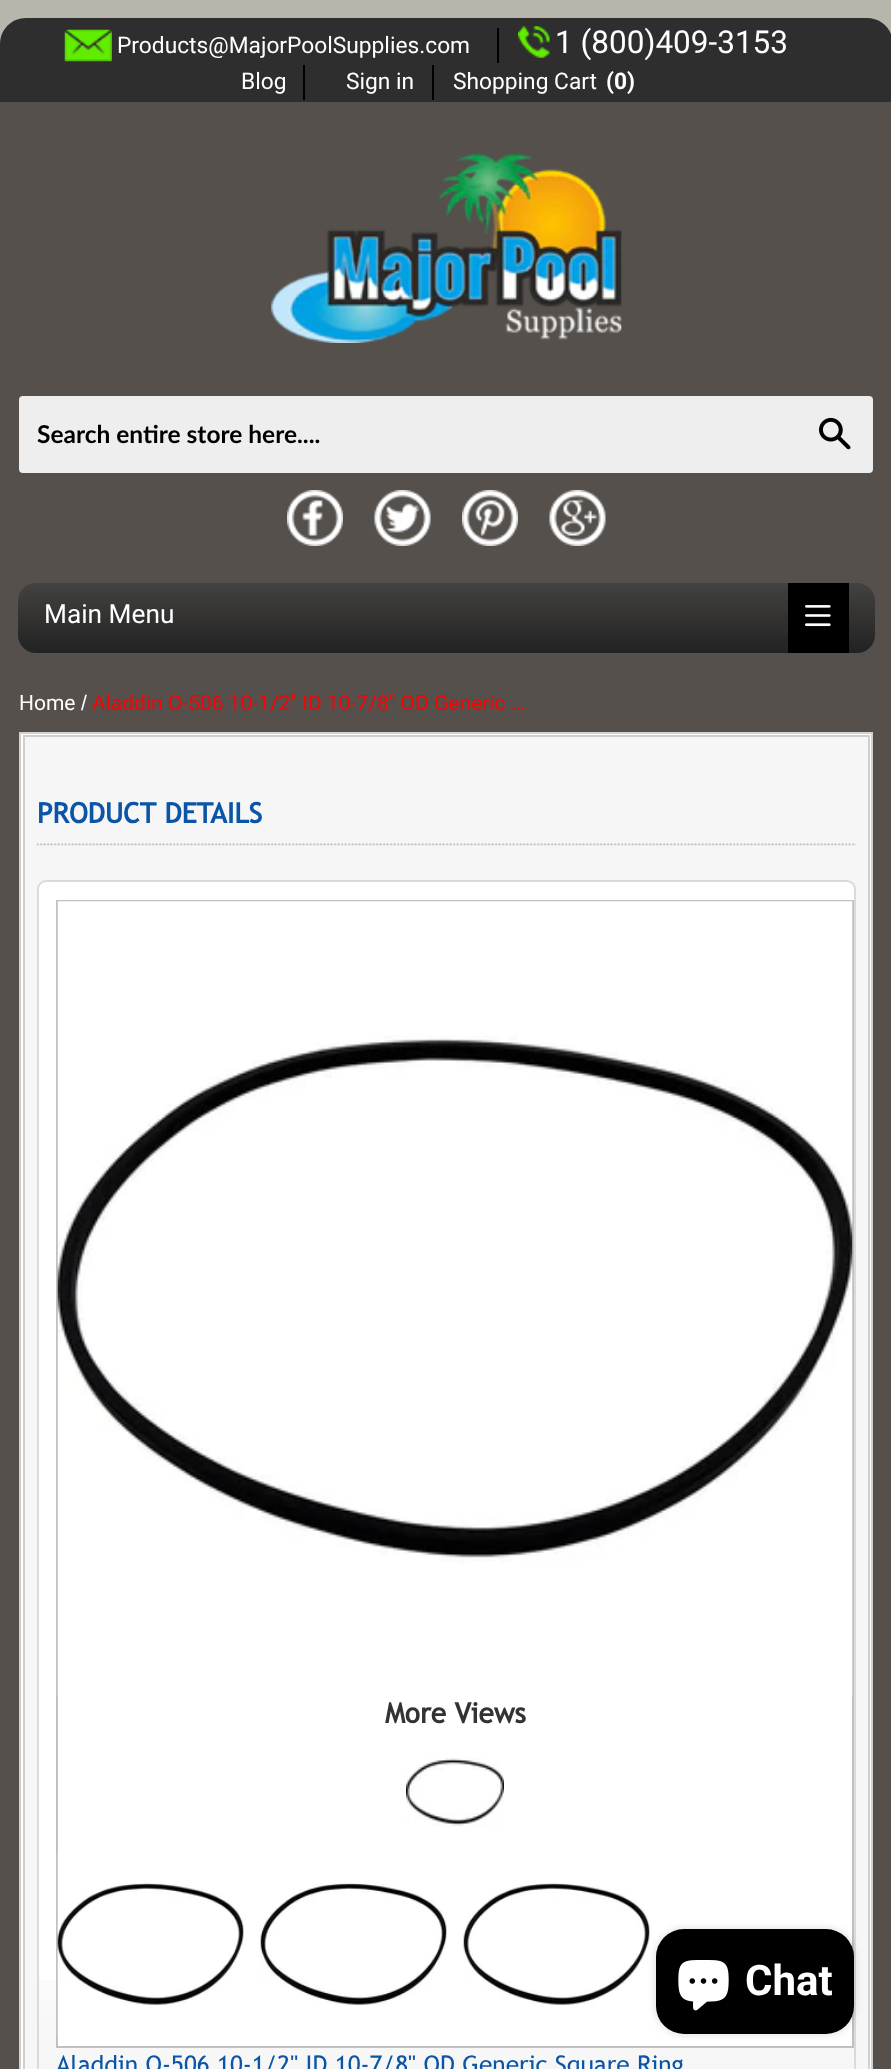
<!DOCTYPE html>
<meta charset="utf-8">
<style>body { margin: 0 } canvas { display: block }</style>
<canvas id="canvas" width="891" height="2069"></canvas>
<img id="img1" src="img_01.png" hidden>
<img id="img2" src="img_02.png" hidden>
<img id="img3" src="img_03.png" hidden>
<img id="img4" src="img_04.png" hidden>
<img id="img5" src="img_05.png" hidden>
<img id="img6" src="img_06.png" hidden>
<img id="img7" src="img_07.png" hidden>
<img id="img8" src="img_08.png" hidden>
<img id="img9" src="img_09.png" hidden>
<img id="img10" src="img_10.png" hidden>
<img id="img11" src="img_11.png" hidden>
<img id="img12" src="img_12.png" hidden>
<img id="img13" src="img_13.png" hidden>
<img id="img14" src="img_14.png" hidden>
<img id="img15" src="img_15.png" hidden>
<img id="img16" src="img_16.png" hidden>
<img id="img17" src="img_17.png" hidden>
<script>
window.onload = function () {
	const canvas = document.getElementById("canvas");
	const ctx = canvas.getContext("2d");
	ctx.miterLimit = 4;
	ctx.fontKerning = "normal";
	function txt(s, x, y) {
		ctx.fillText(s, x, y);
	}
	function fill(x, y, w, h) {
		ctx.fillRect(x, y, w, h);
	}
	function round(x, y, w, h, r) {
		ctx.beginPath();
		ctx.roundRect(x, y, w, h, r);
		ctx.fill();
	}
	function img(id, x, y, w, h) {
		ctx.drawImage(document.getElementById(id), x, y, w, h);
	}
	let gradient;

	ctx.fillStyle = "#B8B5AC";
	fill(0, 0, 891, 2069);
	ctx.fillStyle = "#2E2E2E";
	ctx.beginPath();
	ctx.moveTo(26, 18);
	ctx.lineTo(867, 18);
	ctx.bezierCurveTo(881.5, 18, 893, 29.5, 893, 44);
	ctx.lineTo(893, 102);
	ctx.lineTo(0, 102);
	ctx.lineTo(0, 44);
	ctx.bezierCurveTo(0, 29.5, 11.5, 18, 26, 18);
	ctx.closePath();
	ctx.fill();
	img("img1", 64, 29, 48, 33);
	ctx.fillStyle = "#000000";
	fill(497, 28, 2, 35);
	img("img2", 518, 26, 32, 32);
	fill(303, 65, 2, 35);
	fill(432, 65, 2, 35);
	ctx.fillStyle = "#55504C";
	fill(0, 102, 891, 1967);
	img("img3", 271, 154, 351, 189);
	ctx.fillStyle = "#EEEEEE";
	round(19, 396, 854, 77, 4);
	img("img4", 819, 417, 32, 33);
	img("img5", 287, 490, 56, 56);
	img("img6", 374, 490, 57, 56);
	img("img7", 462, 490, 56, 56);
	img("img8", 549, 490, 57, 56);
	gradient = ctx.createLinearGradient(446, 583, 446, 653);
	gradient.addColorStop(0, "#434240");
	gradient.addColorStop(1, "#222222");
	ctx.fillStyle = gradient;
	round(18, 583, 857, 70, 18);
	ctx.fillStyle = "#000000";
	fill(788, 583, 61, 70);
	img("img9", 805, 605, 26, 22);
	ctx.fillStyle = "#FFFFFF";
	ctx.beginPath();
	ctx.rect(20, 733, 852, 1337);
	ctx.fill();
	ctx.strokeStyle = "#D1D1D1";
	ctx.lineWidth = 2;
	ctx.stroke();
	ctx.fillStyle = "#F6F6F6";
	ctx.beginPath();
	ctx.rect(24, 736, 845, 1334);
	ctx.fill();
	ctx.strokeStyle = "#CFCFCF";
	ctx.stroke();
	img("img10", 36, 843, 820, 3);
	ctx.fillStyle = "#FFFFFF";
	round(37, 880, 819, 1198, 9);
	img("img11", 39, 1980, 815, 89);
	ctx.beginPath();
	ctx.roundRect(38, 881, 817, 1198, 8);
	ctx.strokeStyle = "#DADADA";
	ctx.stroke();
	fill(58, 1980, 794, 66);
	ctx.strokeStyle = "#C0C0C0";
	ctx.strokeRect(57, 901, 796, 1146);
	img("img12", 57, 901, 796, 795);
	img("img13", 406, 1758, 98, 69);
	img("img14", 57, 1851, 187, 186);
	img("img15", 260, 1882, 187, 123);
	img("img16", 463, 1882, 187, 123);
	ctx.fillStyle = "rgba(0, 0, 0, 0.15)";
	ctx.filter = "blur(4.5px)";
	ctx.beginPath();
	ctx.roundRect(656, 1929, 198, 105, 28);
	ctx.fill();
	ctx.filter = "none";
	ctx.fillStyle = "#000000";
	round(656, 1929, 198, 105, 28);
	img("img17", 678, 1960, 51, 51);
	ctx.font = "22.75px Roboto";
	ctx.fillStyle = "#FFFFFF";
	txt("Products@MajorPoolSupplies.com", 117, 53);
	ctx.font = "31.5px Roboto";
	txt("1 (800)409-3153", 555, 53);
	ctx.font = "22.75px Roboto";
	txt("Blog", 241, 89);
	txt("Sign in", 346, 89);
	txt("Shopping Cart", 453, 89);
	ctx.font = "bold 22.75px Roboto";
	txt("(0)", 606, 89);
	ctx.font = "bold 24.5px Lato";
	ctx.fillStyle = "#000000";
	txt("Search entire store here....", 37, 443);
	ctx.font = "26.25px Roboto";
	ctx.fillStyle = "#FFFFFF";
	txt("Main Menu", 44, 623);
	ctx.font = "21px Roboto";
	txt("Home", 19, 710);
	ctx.font = "21px Liberation Sans";
	txt("/", 81, 710);
	ctx.font = "21px Roboto";
	ctx.fillStyle = "#FF0000";
	txt("Aladdin O-506 10-1/2\" ID 10-7/8\" OD Generic …", 92, 710);
	ctx.font = "bold 28px Trebuchet MS";
	ctx.fillStyle = "#0A55A6";
	txt("PRODUCT DETAILS", 37, 823);
	ctx.fillStyle = "#333333";
	txt("More Views", 385, 1723);
	ctx.font = "24.5px Trebuchet MS";
	ctx.fillStyle = "#0A55A6";
	txt("Aladdin O-506 10-1/2\" ID 10-7/8\" OD Generic Square Ring", 56, 2073);
	ctx.font = "bold 42px Roboto";
	ctx.fillStyle = "#FFFFFF";
	txt("Chat", 745, 1995);
};
</script>
